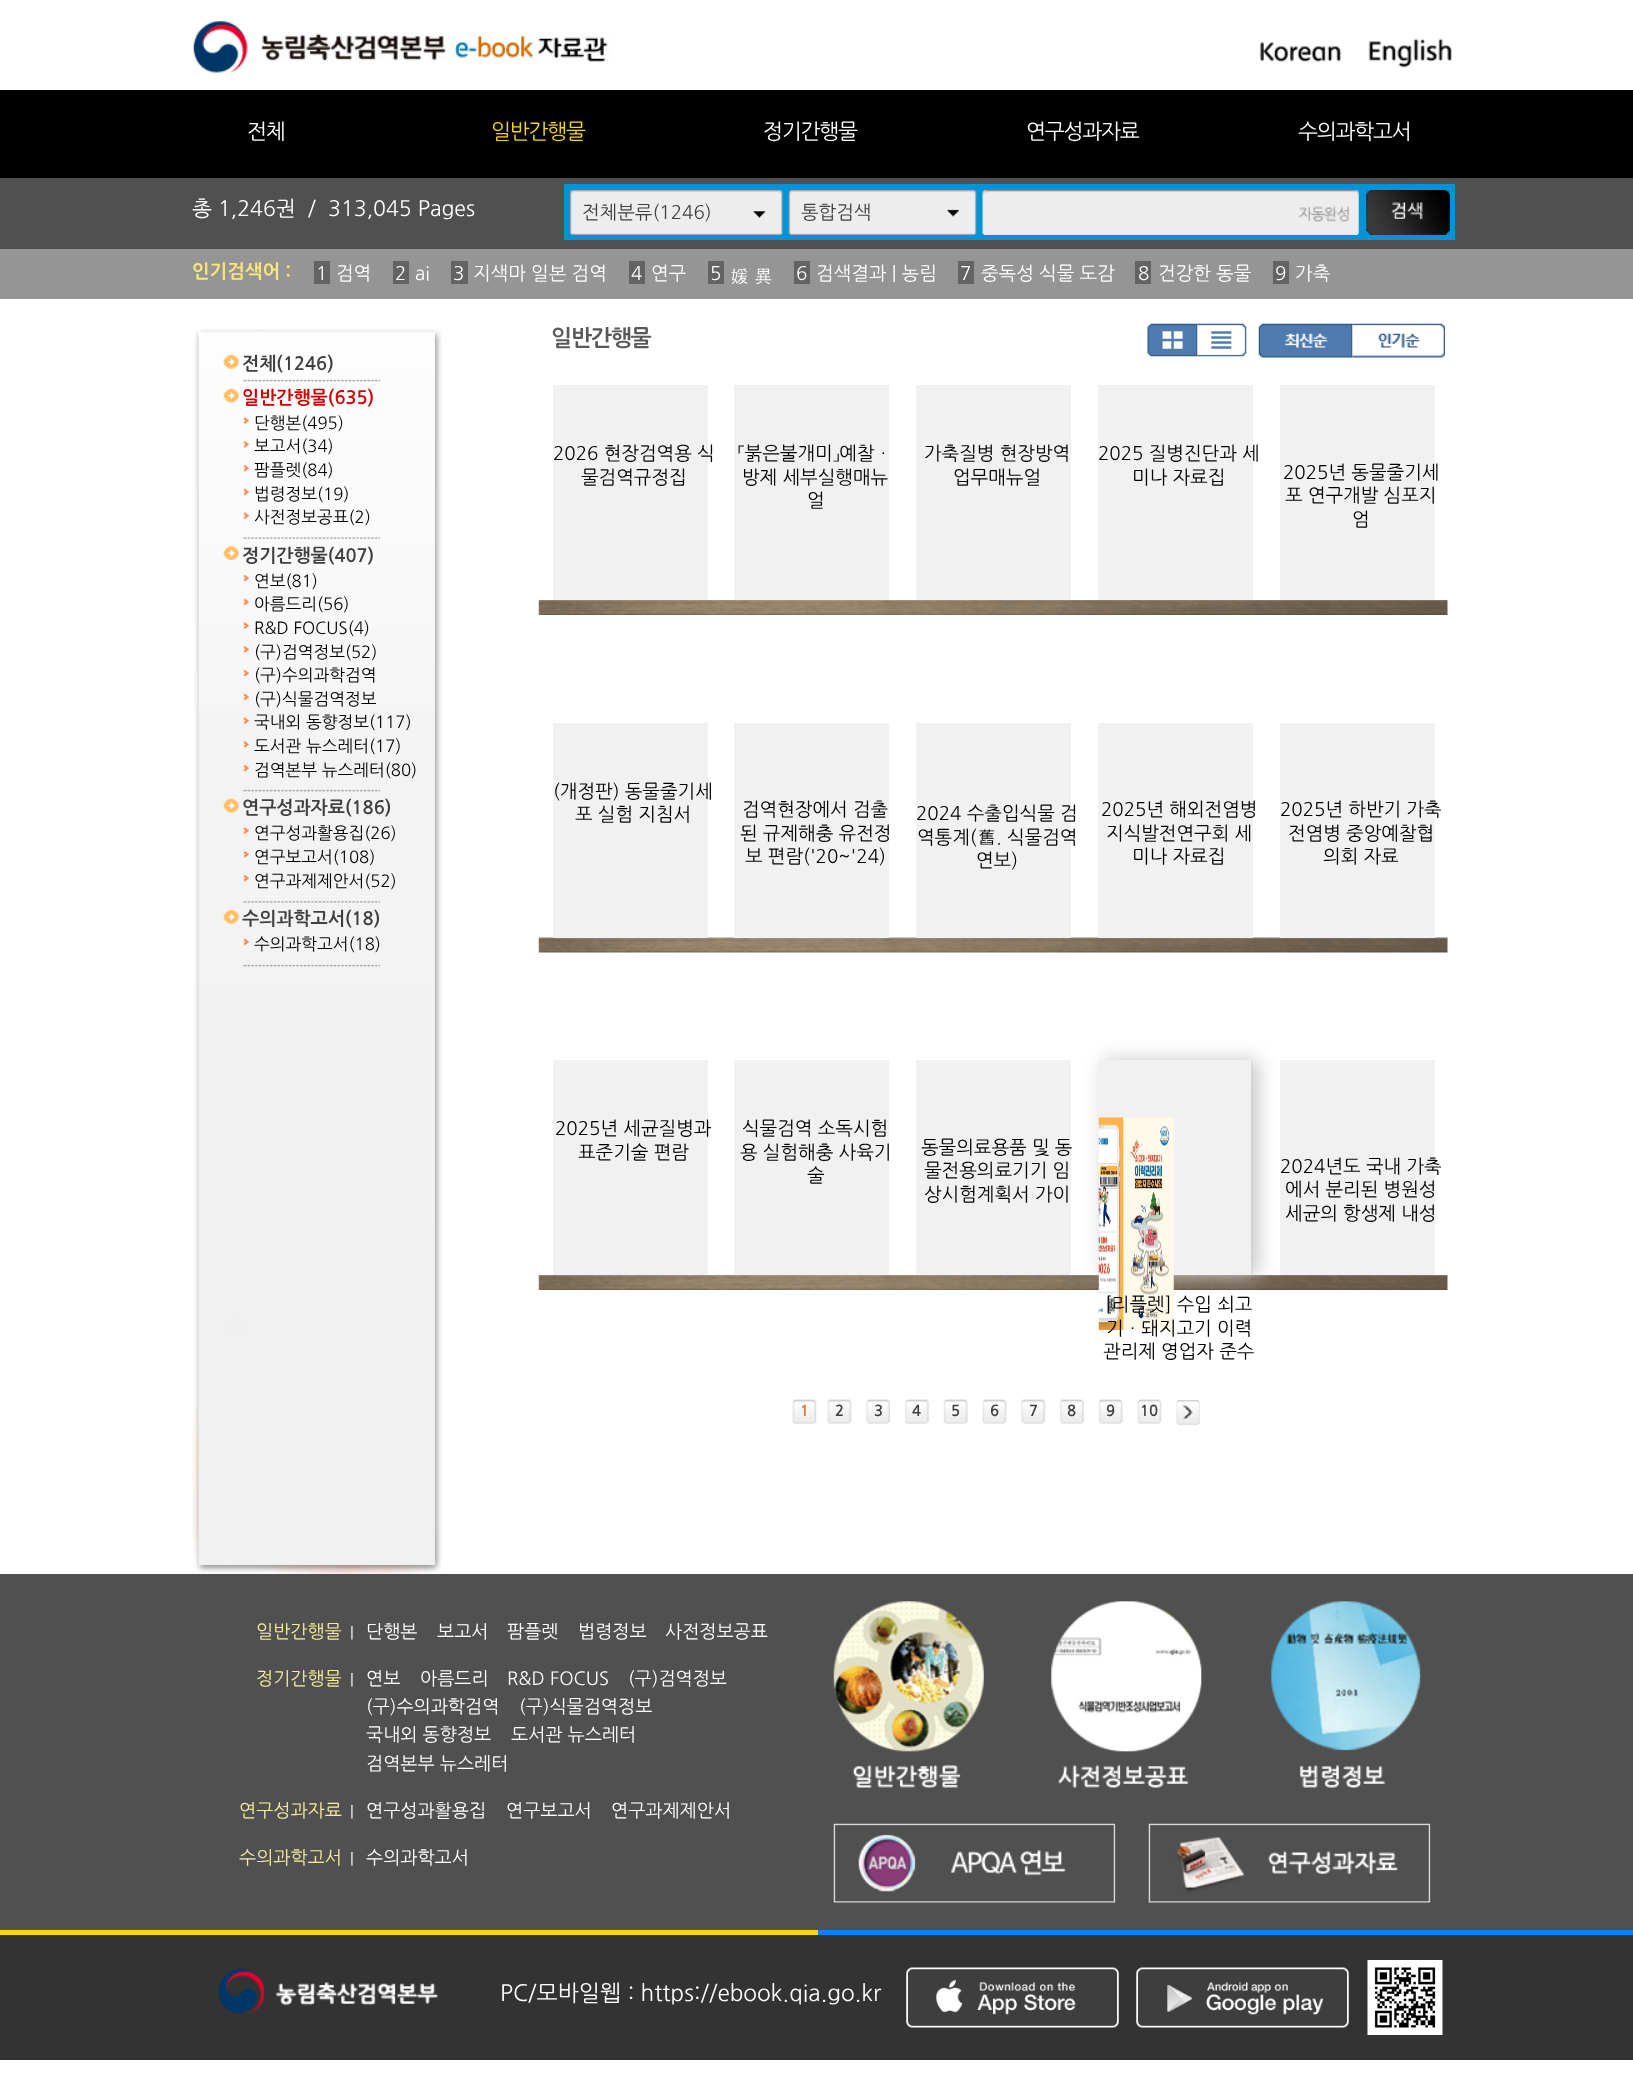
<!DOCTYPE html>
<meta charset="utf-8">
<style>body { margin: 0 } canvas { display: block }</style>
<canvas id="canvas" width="1633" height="2083"></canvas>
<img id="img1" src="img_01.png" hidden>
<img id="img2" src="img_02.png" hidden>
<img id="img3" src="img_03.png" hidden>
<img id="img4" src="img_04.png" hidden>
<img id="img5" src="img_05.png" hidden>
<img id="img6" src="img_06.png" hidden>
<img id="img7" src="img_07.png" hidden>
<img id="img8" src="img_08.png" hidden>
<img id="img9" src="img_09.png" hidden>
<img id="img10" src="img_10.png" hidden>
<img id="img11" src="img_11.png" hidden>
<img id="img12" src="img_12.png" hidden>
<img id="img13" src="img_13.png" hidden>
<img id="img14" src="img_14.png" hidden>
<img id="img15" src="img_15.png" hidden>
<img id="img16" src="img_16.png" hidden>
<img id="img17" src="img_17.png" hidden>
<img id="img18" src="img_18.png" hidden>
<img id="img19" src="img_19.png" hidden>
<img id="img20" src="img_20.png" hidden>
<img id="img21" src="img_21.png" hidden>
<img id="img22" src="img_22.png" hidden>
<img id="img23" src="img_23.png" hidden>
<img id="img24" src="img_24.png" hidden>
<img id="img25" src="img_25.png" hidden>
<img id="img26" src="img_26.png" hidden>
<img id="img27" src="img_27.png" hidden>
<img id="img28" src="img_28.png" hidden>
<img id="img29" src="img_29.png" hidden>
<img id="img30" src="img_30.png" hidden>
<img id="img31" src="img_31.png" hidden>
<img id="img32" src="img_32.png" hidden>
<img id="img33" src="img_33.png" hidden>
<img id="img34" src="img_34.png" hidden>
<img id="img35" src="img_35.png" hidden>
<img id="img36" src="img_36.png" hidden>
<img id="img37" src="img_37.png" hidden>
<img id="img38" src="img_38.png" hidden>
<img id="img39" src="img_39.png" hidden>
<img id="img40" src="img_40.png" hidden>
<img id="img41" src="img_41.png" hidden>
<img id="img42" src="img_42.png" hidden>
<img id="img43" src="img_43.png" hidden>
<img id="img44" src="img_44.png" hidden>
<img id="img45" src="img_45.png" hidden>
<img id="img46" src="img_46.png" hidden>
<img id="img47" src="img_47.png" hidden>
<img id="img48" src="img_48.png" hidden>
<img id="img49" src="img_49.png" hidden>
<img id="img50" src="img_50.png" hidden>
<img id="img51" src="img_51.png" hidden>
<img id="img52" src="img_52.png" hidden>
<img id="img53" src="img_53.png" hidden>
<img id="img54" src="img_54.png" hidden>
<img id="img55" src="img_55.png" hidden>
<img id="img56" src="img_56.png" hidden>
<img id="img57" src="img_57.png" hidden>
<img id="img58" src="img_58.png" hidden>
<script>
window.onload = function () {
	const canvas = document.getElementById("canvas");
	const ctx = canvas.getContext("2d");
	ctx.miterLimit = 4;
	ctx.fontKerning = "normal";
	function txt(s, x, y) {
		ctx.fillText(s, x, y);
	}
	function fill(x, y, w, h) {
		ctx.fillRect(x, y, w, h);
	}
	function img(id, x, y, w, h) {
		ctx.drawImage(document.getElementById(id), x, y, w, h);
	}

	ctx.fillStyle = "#FFFFFF";
	fill(0, 0, 1633, 2083);
	img("img1", 193, 21, 417, 52);
	img("img2", 1259, 42, 83, 20);
	img("img3", 1368, 38, 84, 30);
	ctx.fillStyle = "#000000";
	fill(0, 90, 1633, 88);
	ctx.fillStyle = "#505050";
	fill(0, 178, 1633, 71);
	ctx.fillStyle = "#0592D7";
	fill(564, 184, 891, 56);
	img("img4", 570, 190, 213, 45);
	img("img5", 788, 190, 189, 45);
	img("img6", 982, 190, 377, 45);
	img("img7", 1366, 190, 84, 45);
	ctx.fillStyle = "#959595";
	fill(0, 249, 1633, 50);
	ctx.fillStyle = "#636363";
	fill(314, 261, 16, 23);
	fill(393, 261, 16, 23);
	fill(451, 261, 17, 23);
	fill(629, 261, 16, 23);
	fill(708, 261, 16, 23);
	fill(794, 261, 16, 23);
	fill(958, 261, 16, 23);
	fill(1135, 261, 16, 23);
	fill(1273, 261, 16, 23);
	img("img8", 192, 329, 250, 1245);
	img("img9", 223, 355, 16, 14);
	img("img10", 242, 379, 138, 3);
	img("img11", 223, 388, 16, 15);
	img("img12", 243, 417, 6, 7);
	img("img13", 243, 441, 6, 7);
	img("img14", 243, 464, 6, 8);
	img("img15", 243, 488, 6, 8);
	img("img16", 243, 512, 6, 7);
	img("img17", 242, 537, 138, 2);
	img("img18", 223, 546, 16, 14);
	img("img19", 243, 574, 6, 8);
	img("img20", 243, 598, 6, 8);
	img("img21", 243, 622, 6, 7);
	img("img22", 243, 646, 6, 7);
	img("img23", 243, 669, 6, 8);
	img("img24", 243, 693, 6, 8);
	img("img25", 243, 717, 6, 7);
	img("img26", 243, 741, 6, 7);
	img("img27", 243, 764, 6, 8);
	img("img28", 242, 789, 138, 3);
	img("img29", 223, 798, 16, 15);
	img("img30", 243, 827, 6, 7);
	img("img31", 243, 851, 6, 7);
	img("img27", 243, 874, 6, 8);
	img("img32", 242, 901, 138, 2);
	img("img33", 223, 910, 16, 14);
	img("img34", 243, 938, 6, 8);
	img("img35", 242, 964, 138, 3);
	img("img36", 1147, 323, 51, 34);
	img("img37", 1197, 323, 50, 34);
	img("img38", 1258, 323, 95, 35);
	img("img39", 1352, 323, 93, 35);
	img("img40", 538, 600, 910, 15);
	ctx.fillStyle = "#F1F1F2";
	fill(553, 385, 155, 215);
	fill(734, 385, 155, 215);
	fill(916, 385, 155, 215);
	fill(1098, 385, 155, 215);
	fill(1280, 385, 155, 215);
	img("img41", 538, 937, 910, 16);
	fill(553, 723, 155, 215);
	fill(734, 723, 155, 215);
	fill(916, 723, 155, 215);
	fill(1098, 723, 155, 215);
	fill(1280, 723, 155, 215);
	img("img40", 538, 1275, 910, 15);
	fill(553, 1060, 155, 215);
	fill(734, 1060, 155, 215);
	fill(916, 1060, 155, 215);
	fill(1098, 1060, 155, 215);
	ctx.save();
	ctx.beginPath();
	ctx.moveTo(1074, 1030);
	ctx.lineTo(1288, 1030);
	ctx.lineTo(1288, 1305);
	ctx.lineTo(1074, 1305);
	ctx.closePath();
	ctx.moveTo(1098, 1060);
	ctx.lineTo(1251, 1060);
	ctx.lineTo(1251, 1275);
	ctx.lineTo(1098, 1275);
	ctx.closePath();
	ctx.clip("evenodd");
	ctx.fillStyle = "#C6C6C6";
	ctx.filter = "blur(9.5px)";
	ctx.beginPath();
	ctx.rect(1104, 1060, 154, 215);
	ctx.fill();
	ctx.filter = "none";
	ctx.restore();
	fill(1280, 1060, 155, 215);
	img("img42", 1098, 1117, 76, 213);
	img("img43", 792, 1399, 25, 25);
	img("img44", 827, 1399, 25, 25);
	img("img45", 866, 1399, 25, 25);
	img("img46", 905, 1399, 24, 25);
	img("img47", 943, 1399, 25, 25);
	img("img44", 982, 1399, 25, 25);
	img("img45", 1021, 1399, 25, 25);
	img("img46", 1060, 1399, 24, 25);
	img("img48", 1098, 1399, 25, 25);
	img("img44", 1137, 1399, 25, 25);
	img("img49", 1176, 1400, 24, 26);
	ctx.fillStyle = "#505050";
	fill(0, 1574, 1633, 356);
	img("img50", 833, 1601, 151, 187);
	img("img51", 1051, 1601, 151, 187);
	img("img52", 1271, 1601, 150, 187);
	img("img53", 833, 1823, 283, 80);
	img("img54", 1148, 1823, 283, 80);
	ctx.fillStyle = "#FBD700";
	fill(0, 1930, 818, 5);
	ctx.fillStyle = "#0183F3";
	fill(818, 1930, 815, 5);
	ctx.fillStyle = "#333333";
	fill(0, 1935, 1633, 125);
	img("img55", 218, 1968, 220, 46);
	img("img56", 906, 1967, 213, 61);
	img("img57", 1136, 1967, 213, 61);
	img("img58", 1367, 1960, 76, 75);
	ctx.letterSpacing = "-1.25px";
	ctx.font = "21.25px NanumGothic";
	ctx.fillStyle = "#FFFFFF";
	txt("전체", 247, 139);
	ctx.fillStyle = "#F3D50E";
	txt("일반간행물", 491, 139);
	ctx.fillStyle = "#FFFFFF";
	txt("정기간행물", 763, 139);
	txt("연구성과자료", 1026, 139);
	txt("수의과학고서", 1298, 139);
	ctx.letterSpacing = "0px";
	txt("총 1,246권  /", 192, 216);
	txt("313,045 Pages", 328, 216);
	ctx.font = "18.75px NanumGothic";
	ctx.fillStyle = "#3F3F3F";
	txt("전체분류(1246)", 582, 219);
	txt("통합검색", 801, 219);
	ctx.font = "bold 18.75px NanumGothic";
	ctx.fillStyle = "#F9E879";
	txt("인기검색어 :", 192, 278);
	ctx.font = "18.75px NanumGothic";
	ctx.fillStyle = "#FFFFFF";
	txt("1", 316, 280);
	txt("검역", 336, 280);
	txt("2", 395, 280);
	txt("ai", 415, 280);
	txt("3", 453, 280);
	txt("지색마 일본 검역", 473, 280);
	txt("4", 631, 280);
	txt("연구", 651, 280);
	txt("5", 710, 280);
	ctx.save();
	ctx.beginPath();
	ctx.rect(314, 261, 1100, 23);
	ctx.clip();
	ctx.wordSpacing = "-1px";
	ctx.font = "18.75px Dotum";
	txt("媛 異", 730, 283);
	ctx.restore();
	txt("6", 796, 280);
	txt("검색결과 | 농림", 816, 280);
	txt("7", 960, 280);
	txt("중독성 식물 도감", 981, 280);
	txt("8", 1138, 280);
	txt("건강한 동물", 1158, 280);
	txt("9", 1275, 280);
	txt("가축", 1295, 280);
	ctx.font = "bold 18.25px NanumGothic";
	ctx.fillStyle = "#3F3F3F";
	txt("전체(1246)", 242, 370);
	ctx.fillStyle = "#D30000";
	txt("일반간행물(635)", 242, 404);
	ctx.font = "16.75px NanumGothic";
	ctx.fillStyle = "#000000";
	txt("단행본(495)", 254, 429);
	txt("보고서(34)", 254, 452);
	txt("팜플렛(84)", 254, 476);
	txt("법령정보(19)", 254, 500);
	txt("사전정보공표(2)", 254, 523);
	ctx.font = "bold 18.25px NanumGothic";
	ctx.fillStyle = "#3F3F3F";
	txt("정기간행물(407)", 242, 562);
	ctx.font = "16.75px NanumGothic";
	ctx.fillStyle = "#000000";
	txt("연보(81)", 254, 587);
	txt("아름드리(56)", 254, 610);
	txt("R&D FOCUS(4)", 254, 634);
	txt("(구)검역정보(52)", 254, 658);
	txt("(구)수의과학검역", 254, 681);
	txt("(구)식물검역정보", 254, 705);
	txt("국내외 동향정보(117)", 254, 728);
	txt("도서관 뉴스레터(17)", 254, 752);
	txt("검역본부 뉴스레터(80)", 254, 776);
	ctx.font = "bold 18.25px NanumGothic";
	ctx.fillStyle = "#3F3F3F";
	txt("연구성과자료(186)", 242, 814);
	ctx.font = "16.75px NanumGothic";
	ctx.fillStyle = "#000000";
	txt("연구성과활용집(26)", 254, 839);
	txt("연구보고서(108)", 254, 863);
	txt("연구과제제안서(52)", 254, 887);
	ctx.font = "bold 18.25px NanumGothic";
	ctx.fillStyle = "#3F3F3F";
	txt("수의과학고서(18)", 242, 925);
	ctx.font = "16.75px NanumGothic";
	ctx.fillStyle = "#000000";
	txt("수의과학고서(18)", 254, 950);
	ctx.letterSpacing = "-1.25px";
	ctx.font = "bold 22.5px NanumGothic";
	ctx.fillStyle = "#595959";
	txt("일반간행물", 551, 346);
	ctx.letterSpacing = "0px";
	ctx.font = "18.75px NanumGothic";
	ctx.fillStyle = "#000000";
	txt("2026 현장검역용 식", 553, 460);
	txt("물검역규정집", 581, 484);
	txt("「붉은불개미」예찰ㆍ", 738, 460);
	txt("방제 세부실행매뉴", 742, 484);
	txt("얼", 807, 507);
	txt("가축질병 현장방역", 924, 460);
	txt("업무매뉴얼", 953, 484);
	txt("2025 질병진단과 세", 1098, 460);
	txt("미나 자료집", 1132, 484);
	txt("2025년 동물줄기세", 1283, 479);
	txt("포 연구개발 심포지", 1285, 502);
	txt("엄", 1352, 526);
	txt("(개정판) 동물줄기세", 553, 798);
	txt("포 실험 지침서", 575, 821);
	txt("검역현장에서 검출", 742, 816);
	txt("된 규제해충 유전정", 740, 840);
	txt("보 편람('20~'24)", 745, 863);
	txt("2024 수출입식물 검", 916, 820);
	txt("역통계(", 917, 844);
	ctx.font = "18.75px Dotum";
	txt("舊", 977, 844);
	ctx.font = "18.75px NanumGothic";
	txt(". 식물검역", 996, 844);
	txt("연보)", 976, 867);
	txt("2025년 해외전염병", 1101, 816);
	txt("지식발전연구회 세", 1106, 840);
	txt("미나 자료집", 1132, 863);
	txt("2025년 하반기 가축", 1280, 816);
	txt("전염병 중앙예찰협", 1288, 840);
	txt("의회 자료", 1323, 863);
	txt("2025년 세균질병과", 555, 1135);
	txt("표준기술 편람", 578, 1159);
	txt("식물검역 소독시험", 742, 1135);
	txt("용 실험해충 사육기", 740, 1159);
	txt("술", 807, 1182);
	txt("동물의료용품 및 동", 921, 1154);
	txt("물전용의료기기 임", 924, 1177);
	txt("상시험계획서 가이", 924, 1201);
	txt("2024년도 국내 가축", 1280, 1173);
	txt("에서 분리된 병원성", 1285, 1196);
	txt("세균의 항생제 내성", 1285, 1220);
	txt("[리플렛] 수입 쇠고", 1105, 1311);
	txt("기ㆍ돼지고기 이력", 1106, 1335);
	txt("관리제 영업자 준수", 1103, 1358);
	ctx.font = "bold 15px NanumGothic";
	ctx.fillStyle = "#DC7429";
	txt("1", 800, 1416);
	ctx.fillStyle = "#3F3F3F";
	txt("2", 835, 1416);
	txt("3", 874, 1416);
	txt("4", 912, 1416);
	txt("5", 951, 1416);
	txt("6", 990, 1416);
	txt("7", 1029, 1416);
	txt("8", 1067, 1416);
	txt("9", 1106, 1416);
	txt("10", 1140, 1416);
	ctx.font = "18.25px NanumGothic";
	ctx.fillStyle = "#F4EB9E";
	txt("일반간행물", 256, 1638);
	ctx.font = "15px NanumGothic";
	ctx.fillStyle = "#FFFFFF";
	txt("|", 350, 1638);
	ctx.font = "18.25px NanumGothic";
	txt("단행본", 366, 1638);
	txt("보고서", 437, 1638);
	txt("팜플렛", 507, 1638);
	txt("법령정보", 578, 1638);
	txt("사전정보공표", 665, 1638);
	ctx.fillStyle = "#F4EB9E";
	txt("정기간행물", 256, 1685);
	ctx.font = "15px NanumGothic";
	ctx.fillStyle = "#FFFFFF";
	txt("|", 350, 1685);
	ctx.font = "18.25px NanumGothic";
	txt("연보", 366, 1685);
	txt("아름드리", 420, 1685);
	txt("R&D FOCUS", 507, 1685);
	txt("(구)검역정보", 628, 1685);
	txt("(구)수의과학검역", 366, 1713);
	txt("(구)식물검역정보", 519, 1713);
	txt("국내외 동향정보", 366, 1741);
	txt("도서관 뉴스레터", 511, 1741);
	txt("검역본부 뉴스레터", 366, 1770);
	ctx.fillStyle = "#F4EB9E";
	txt("연구성과자료", 239, 1817);
	ctx.font = "15px NanumGothic";
	ctx.fillStyle = "#FFFFFF";
	txt("|", 350, 1817);
	ctx.font = "18.25px NanumGothic";
	txt("연구성과활용집", 366, 1817);
	txt("연구보고서", 506, 1817);
	txt("연구과제제안서", 611, 1817);
	ctx.fillStyle = "#F4EB9E";
	txt("수의과학고서", 239, 1864);
	ctx.font = "15px NanumGothic";
	ctx.fillStyle = "#FFFFFF";
	txt("|", 350, 1864);
	ctx.font = "18.25px NanumGothic";
	txt("수의과학고서", 366, 1864);
	ctx.font = "22.5px NanumGothic";
	txt("PC/모바일웹 : https://ebook.qia.go.kr", 500, 2001);
};
</script>
